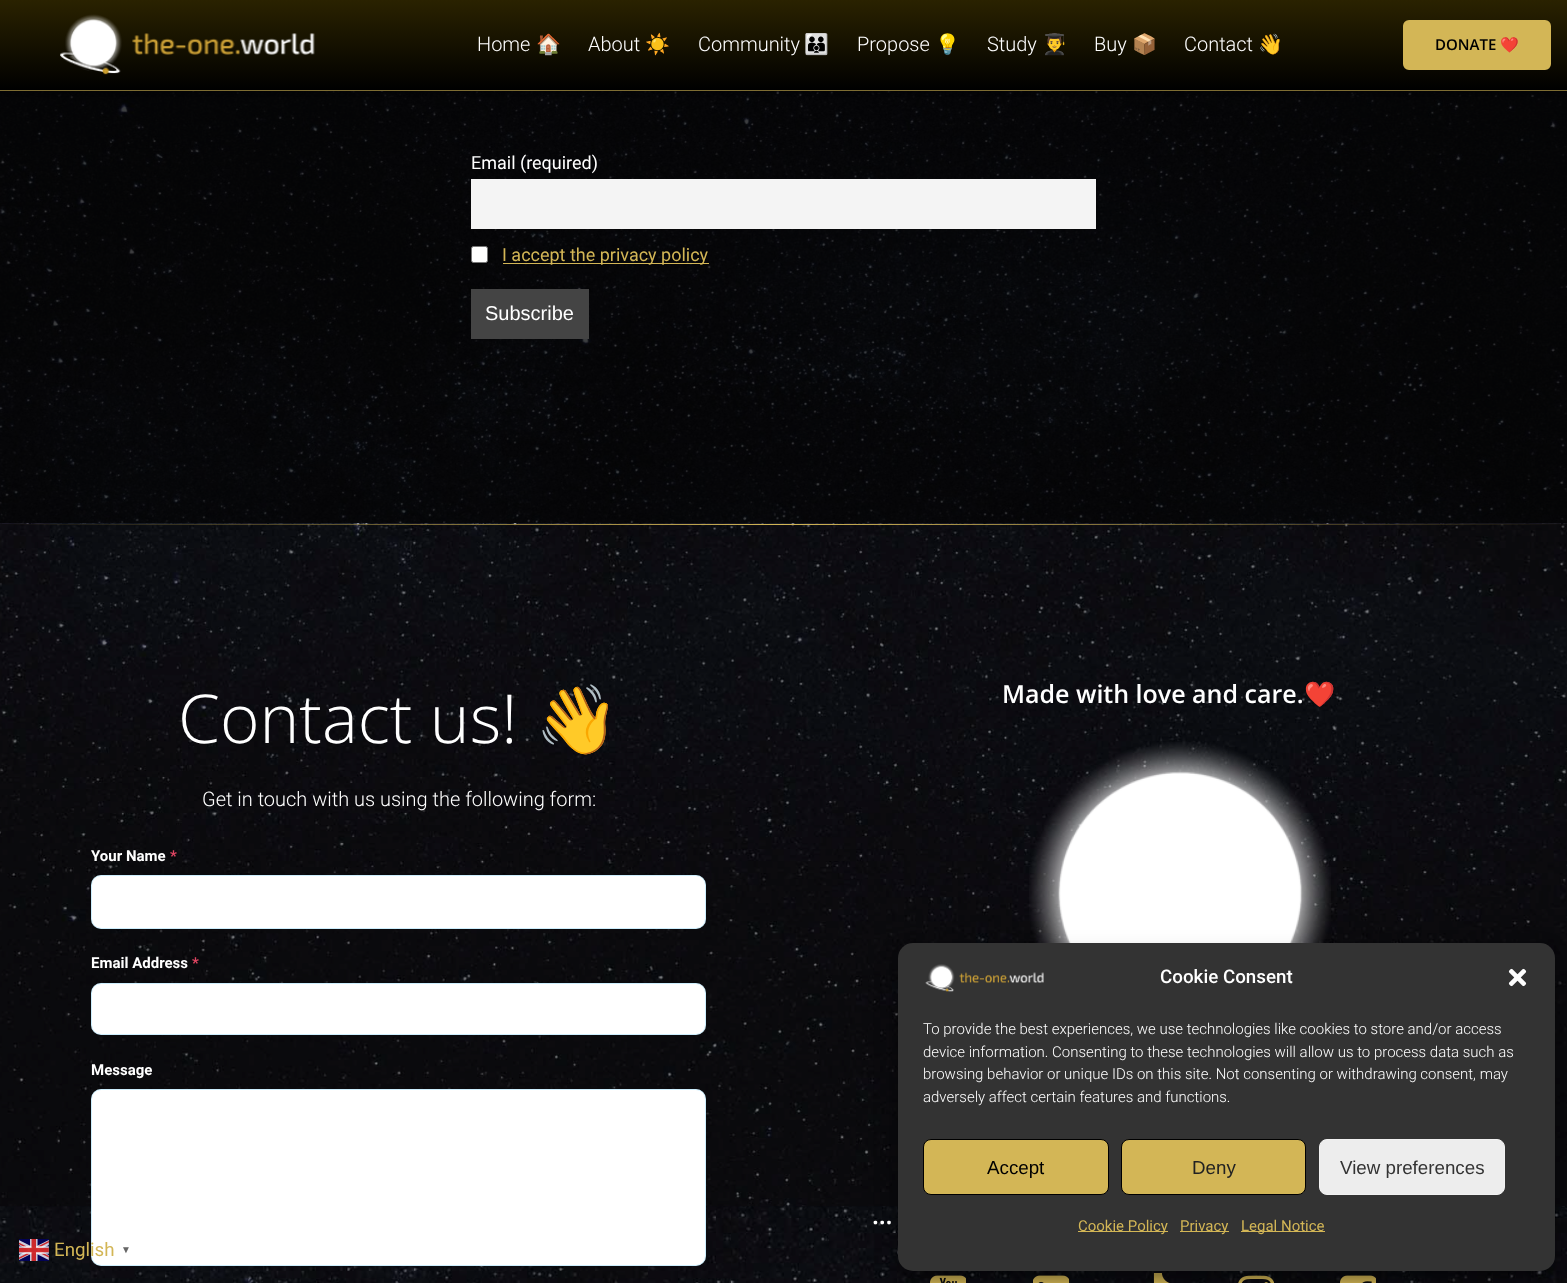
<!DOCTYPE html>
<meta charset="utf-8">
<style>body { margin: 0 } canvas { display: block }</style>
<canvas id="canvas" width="1567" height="1283"></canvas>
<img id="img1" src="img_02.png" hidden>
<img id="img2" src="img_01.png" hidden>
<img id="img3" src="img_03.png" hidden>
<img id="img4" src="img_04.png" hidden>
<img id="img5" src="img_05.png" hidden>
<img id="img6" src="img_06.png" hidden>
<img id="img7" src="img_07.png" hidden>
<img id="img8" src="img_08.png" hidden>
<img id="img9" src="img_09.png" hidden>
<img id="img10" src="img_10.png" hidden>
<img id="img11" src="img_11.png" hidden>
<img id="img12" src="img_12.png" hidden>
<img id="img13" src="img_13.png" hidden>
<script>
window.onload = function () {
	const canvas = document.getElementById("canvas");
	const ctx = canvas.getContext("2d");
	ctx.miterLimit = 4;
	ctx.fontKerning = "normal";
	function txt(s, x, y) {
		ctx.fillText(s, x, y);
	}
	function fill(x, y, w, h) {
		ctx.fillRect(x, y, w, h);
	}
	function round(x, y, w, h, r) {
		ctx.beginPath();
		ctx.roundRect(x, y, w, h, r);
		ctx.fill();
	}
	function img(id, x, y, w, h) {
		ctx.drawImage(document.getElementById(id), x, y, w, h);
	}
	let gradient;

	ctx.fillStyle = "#FFFFFF";
	fill(0, 0, 1567, 1283);
	img("img1", 0, 91, 1567, 432);
	ctx.fillStyle = "rgba(0, 0, 0, 0.5)";
	ctx.filter = "blur(2.5px)";
	ctx.beginPath();
	ctx.rect(0, 0, 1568, 91);
	ctx.fill();
	ctx.filter = "none";
	gradient = ctx.createLinearGradient(784, 90, 784, 0);
	gradient.addColorStop(0, "#000000");
	gradient.addColorStop(1, "#2A2200");
	ctx.fillStyle = gradient;
	fill(0, 0, 1567, 90);
	ctx.fillStyle = "#7E6D33";
	fill(0, 90, 1567, 1);
	img("img2", 60, 14, 255, 61);
	ctx.fillStyle = "#D3B656";
	ctx.beginPath();
	ctx.roundRect(1404.5, 21.5, 145, 47, 4.5);
	ctx.fill();
	ctx.strokeStyle = "#D3B656";
	ctx.lineWidth = 3;
	ctx.stroke();
	ctx.fillStyle = "#F4F4F4";
	fill(471, 179, 625, 50);
	ctx.fillStyle = "#FFFFFF";
	ctx.beginPath();
	ctx.roundRect(471.5, 246.5, 16, 16, 2);
	ctx.fill();
	ctx.strokeStyle = "#767676";
	ctx.lineWidth = 1;
	ctx.stroke();
	ctx.fillStyle = "#D3B656";
	fill(503, 263, 206, 1);
	ctx.fillStyle = "#444444";
	fill(471, 289, 118, 50);
	img("img3", 0, 1206, 1567, 77);
	img("img4", 0, 523, 1567, 684);
	ctx.fillStyle = "#D3B656";
	ctx.beginPath();
	ctx.moveTo(784, 525);
	ctx.lineTo(0, 524);
	ctx.lineTo(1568, 524);
	ctx.closePath();
	ctx.fill();
	ctx.fillStyle = "#FFFFFF";
	round(91, 875, 615, 54, 10);
	ctx.beginPath();
	ctx.roundRect(91.5, 875.5, 614, 53, 9.5);
	ctx.strokeStyle = "rgba(3, 169, 244, 0.2)";
	ctx.stroke();
	round(91, 983, 615, 52, 10);
	ctx.beginPath();
	ctx.roundRect(91.5, 983.5, 614, 51, 9.5);
	ctx.stroke();
	round(91, 1089, 615, 177, 10);
	ctx.beginPath();
	ctx.roundRect(91.5, 1089.5, 614, 176, 9.5);
	ctx.stroke();
	img("img5", 1029, 742, 302, 201);
	img("img6", 930, 1275, 36, 8);
	img("img7", 1033, 1275, 36, 8);
	img("img8", 1153, 1273, 17, 10);
	img("img9", 1238, 1275, 36, 8);
	img("img10", 1340, 1275, 36, 8);
	ctx.fillStyle = "rgba(0, 0, 0, 0.23)";
	ctx.filter = "blur(4px)";
	ctx.beginPath();
	ctx.roundRect(898, 950, 657, 329, 15);
	ctx.fill();
	ctx.filter = "none";
	ctx.fillStyle = "rgba(0, 0, 0, 0.19)";
	ctx.filter = "blur(12.5px)";
	ctx.beginPath();
	ctx.roundRect(898, 955, 657, 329, 15);
	ctx.fill();
	ctx.filter = "none";
	ctx.fillStyle = "#333333";
	round(898, 943, 657, 328, 15);
	img("img11", 925, 964, 119, 28);
	img("img12", 1508, 968, 19, 19);
	ctx.fillStyle = "#D3B656";
	ctx.beginPath();
	ctx.roundRect(923.5, 1139.5, 185, 55, 7.5);
	ctx.fill();
	ctx.strokeStyle = "#000000";
	ctx.stroke();
	ctx.beginPath();
	ctx.roundRect(1121.5, 1139.5, 184, 55, 7.5);
	ctx.fill();
	ctx.stroke();
	ctx.fillStyle = "#EDEDED";
	ctx.beginPath();
	ctx.roundRect(1319.5, 1139.5, 185, 55, 7.5);
	ctx.fill();
	ctx.strokeStyle = "#F2F2F2";
	ctx.stroke();
	ctx.fillStyle = "#D3B656";
	fill(1078, 1231, 90, 1);
	fill(1180, 1231, 49, 1);
	fill(1241, 1231, 84, 1);
	img("img13", 19, 1239, 30, 22);
	ctx.font = "300 20px Roboto";
	ctx.fillStyle = "#FFFFFF";
	txt("Home", 477, 51);
	ctx.font = "20px Noto Color Emoji";
	txt("🏠", 536, 51);
	ctx.font = "300 20px Roboto";
	txt("About", 588, 51);
	ctx.font = "20px Noto Color Emoji";
	txt("☀️", 645, 51);
	ctx.font = "300 20px Roboto";
	txt("Community", 698, 51);
	ctx.font = "20px Noto Color Emoji";
	txt("👨‍👨‍👦", 804, 51);
	ctx.font = "300 20px Roboto";
	txt("Propose", 857, 51);
	ctx.font = "20px Noto Color Emoji";
	txt("💡", 935, 51);
	ctx.font = "300 20px Roboto";
	txt("Study", 987, 51);
	ctx.font = "20px Noto Color Emoji";
	txt("👨‍🎓", 1042, 51);
	ctx.font = "300 20px Roboto";
	txt("Buy", 1094, 51);
	ctx.font = "20px Noto Color Emoji";
	txt("📦", 1132, 51);
	ctx.font = "300 20px Roboto";
	txt("Contact", 1184, 51);
	ctx.font = "20px Noto Color Emoji";
	txt("👋", 1258, 51);
	ctx.font = "600 15px Open Sans";
	ctx.fillStyle = "#000000";
	txt("DONATE", 1435, 50);
	ctx.font = "bold 15px Noto Color Emoji";
	txt("❤️", 1500, 50);
	ctx.font = "18px Roboto";
	ctx.fillStyle = "#FFFFFF";
	txt("Email (required)", 471, 169);
	ctx.fillStyle = "#D3B656";
	txt("I accept the privacy policy", 502, 261);
	ctx.font = "20px Liberation Sans";
	ctx.fillStyle = "#FFFFFF";
	txt("Subscribe", 485, 320);
	ctx.font = "300 67.5px Open Sans";
	txt("Contact us!", 178, 743);
	ctx.font = "67.5px Noto Color Emoji";
	txt("👋", 535, 743);
	ctx.font = "300 20px Roboto";
	txt("Get in touch with us using the following form:", 202, 806);
	ctx.font = "bold 15px Roboto";
	txt("Your Name", 91, 861);
	ctx.fillStyle = "#E04562";
	txt("*", 170, 861);
	ctx.fillStyle = "#FFFFFF";
	txt("Email Address", 91, 968);
	ctx.fillStyle = "#E04562";
	txt("*", 192, 968);
	ctx.fillStyle = "#FFFFFF";
	txt("Message", 91, 1075);
	ctx.font = "600 25px Open Sans";
	txt("Made with love and care.", 1002, 703);
	ctx.font = "bold 25px Noto Color Emoji";
	txt("❤️", 1304, 703);
	ctx.font = "600 25px Open Sans";
	txt("…", 872, 1224);
	ctx.font = "500 18.75px Roboto";
	txt("Cookie Consent", 1160, 983);
	ctx.font = "300 15px Roboto";
	txt("To provide the best experiences, we use technologies like cookies to store and/or access", 923, 1034);
	txt("device information. Consenting to these technologies will allow us to process data such as", 923, 1057);
	txt("browsing behavior or unique IDs on this site. Not consenting or withdrawing consent, may", 923, 1079);
	txt("adversely affect certain features and functions.", 923, 1102);
	ctx.font = "18.75px Liberation Sans";
	ctx.fillStyle = "#000000";
	txt("Accept", 987, 1174);
	ctx.fillStyle = "#222222";
	txt("Deny", 1192, 1174);
	ctx.fillStyle = "#333333";
	txt("View preferences", 1340, 1174);
	ctx.font = "15px Roboto";
	ctx.fillStyle = "#D3B656";
	txt("Cookie Policy", 1078, 1231);
	txt("Privacy", 1180, 1231);
	txt("Legal Notice", 1241, 1231);
	ctx.font = "18.75px Roboto";
	txt("English", 54, 1256);
	ctx.font = "bold 10px Liberation Serif";
	ctx.fillStyle = "#666666";
	txt("▼", 121, 1253);
};
</script>
